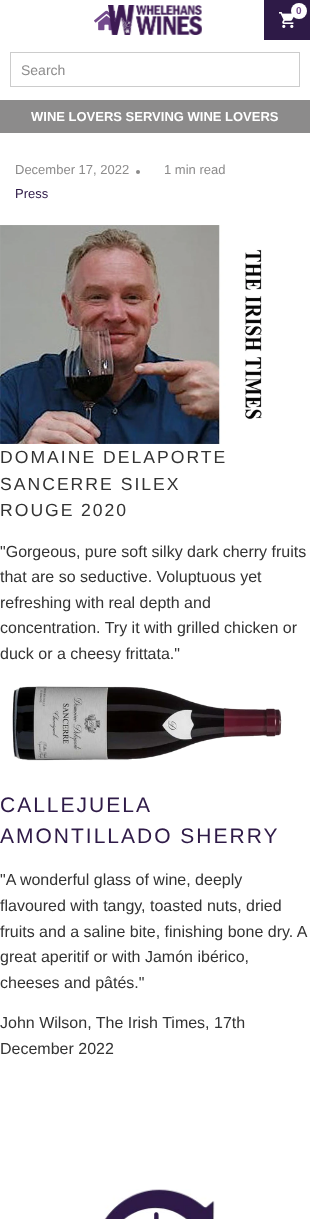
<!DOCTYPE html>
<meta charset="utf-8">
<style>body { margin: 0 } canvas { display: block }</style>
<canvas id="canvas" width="310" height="1219"></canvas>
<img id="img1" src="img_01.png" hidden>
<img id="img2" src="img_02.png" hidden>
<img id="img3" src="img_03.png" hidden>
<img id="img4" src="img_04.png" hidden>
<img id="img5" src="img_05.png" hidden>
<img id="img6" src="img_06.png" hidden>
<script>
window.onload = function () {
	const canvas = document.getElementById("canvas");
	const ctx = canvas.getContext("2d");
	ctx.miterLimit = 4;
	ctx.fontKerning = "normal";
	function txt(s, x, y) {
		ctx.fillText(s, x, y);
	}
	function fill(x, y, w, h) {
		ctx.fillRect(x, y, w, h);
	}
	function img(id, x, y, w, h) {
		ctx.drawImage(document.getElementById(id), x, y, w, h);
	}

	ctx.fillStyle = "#FFFFFF";
	fill(0, 0, 310, 1219);
	img("img1", 94, 10, 24, 21);
	img("img2", 108, 5, 94, 30);
	ctx.fillStyle = "#2E1A47";
	fill(264, 0, 46, 40);
	img("img3", 279, 12, 15, 16);
	ctx.fillStyle = "#FFFFFF";
	ctx.beginPath();
	ctx.arc(299, 11, 8, 0, Math.PI * 2);
	ctx.fill();
	ctx.strokeStyle = "#CCCCCC";
	ctx.strokeRect(10.5, 52.5, 289, 34);
	ctx.fillStyle = "#8C8B8B";
	fill(0, 100, 310, 33);
	ctx.beginPath();
	ctx.arc(138, 172, 2, 0, Math.PI * 2);
	ctx.fill();
	img("img4", 0, 225, 262, 219);
	img("img5", 12, 686, 270, 75);
	img("img6", 104, 1189, 111, 30);
	ctx.letterSpacing = "-1px";
	ctx.font = "bold 10px Liberation Sans";
	ctx.fillStyle = "#744B8D";
	txt("0", 296, 14);
	ctx.letterSpacing = "0px";
	ctx.font = "14px Liberation Sans";
	ctx.fillStyle = "#8C8B8B";
	txt("Search", 21, 75);
	ctx.font = "bold 13px Liberation Sans";
	ctx.fillStyle = "#FFFFFF";
	txt("WINE LOVERS SERVING WINE LOVERS", 31, 121);
	ctx.font = "13px Liberation Sans";
	ctx.fillStyle = "#8C8B8B";
	txt("December 17, 2022", 15, 174);
	txt("1 min read", 164, 174);
	ctx.fillStyle = "#2E1A47";
	txt("Press", 15, 198);
	ctx.letterSpacing = "2px";
	ctx.font = "17.6px Liberation Sans";
	ctx.fillStyle = "#333333";
	txt("DOMAINE DELAPORTE", 0, 463);
	txt("SANCERRE SILEX", 0, 490);
	txt("ROUGE", 0, 516);
	txt("2020", 81, 516);
	ctx.letterSpacing = "0px";
	ctx.font = "16px Liberation Sans";
	txt("\"Gorgeous, pure soft silky dark cherry fruits", 0, 557);
	txt("that are so seductive. Voluptuous yet", 0, 582);
	txt("refreshing with real depth and", 0, 608);
	txt("concentration. Try it with grilled chicken or", 0, 633);
	txt("duck or a cheesy frittata.\"", 0, 659);
	ctx.letterSpacing = "2px";
	ctx.font = "21px Liberation Sans";
	ctx.fillStyle = "#2E1A47";
	txt("CALLEJUELA", 0, 812);
	txt("AMONTILLADO SHERRY", 0, 843);
	ctx.letterSpacing = "0px";
	ctx.font = "16px Liberation Sans";
	ctx.fillStyle = "#333333";
	txt("\"A wonderful glass of wine, deeply", 0, 885);
	txt("flavoured with tangy, toasted nuts, dried", 0, 911);
	txt("fruits and a saline bite, finishing bone dry. A", 0, 937);
	txt("great aperitif or with Jamón ibérico,", 0, 962);
	txt("cheeses and pâtés.\"", 0, 988);
	txt("John Wilson, The Irish Times, 17th", 0, 1028);
	txt("December 2022", 0, 1054);
};
</script>
